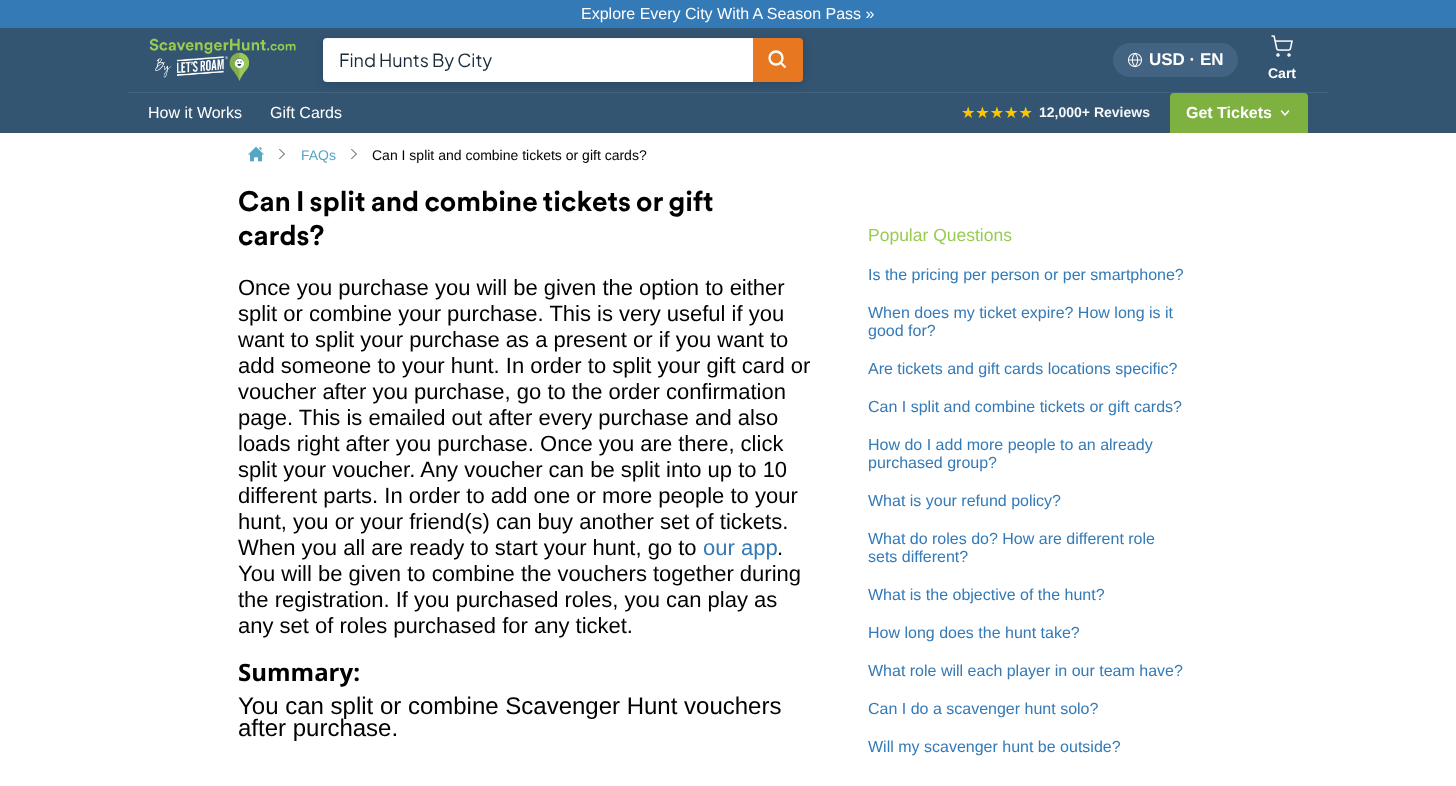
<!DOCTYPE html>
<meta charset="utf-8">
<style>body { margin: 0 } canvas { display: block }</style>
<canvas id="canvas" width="1456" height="786"></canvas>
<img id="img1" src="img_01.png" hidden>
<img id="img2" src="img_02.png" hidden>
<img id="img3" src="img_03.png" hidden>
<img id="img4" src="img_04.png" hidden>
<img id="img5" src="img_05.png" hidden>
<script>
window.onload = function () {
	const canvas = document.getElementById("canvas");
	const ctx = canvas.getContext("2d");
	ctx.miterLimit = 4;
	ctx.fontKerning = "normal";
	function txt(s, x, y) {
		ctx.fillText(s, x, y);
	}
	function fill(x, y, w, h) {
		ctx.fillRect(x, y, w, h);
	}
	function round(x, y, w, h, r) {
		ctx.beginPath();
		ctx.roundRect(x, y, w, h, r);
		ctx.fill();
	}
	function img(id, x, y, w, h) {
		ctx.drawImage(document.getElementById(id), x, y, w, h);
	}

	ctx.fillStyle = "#FFFFFF";
	fill(0, 0, 1456, 786);
	ctx.fillStyle = "#337AB7";
	fill(0, 0, 1456, 28);
	ctx.fillStyle = "#335572";
	fill(0, 28, 1456, 105);
	img("img1", 149, 38, 147, 43);
	ctx.fillStyle = "#43637D";
	fill(128, 92, 1200, 1);
	ctx.fillStyle = "rgba(0, 0, 0, 0.15)";
	ctx.filter = "blur(4px)";
	ctx.beginPath();
	ctx.roundRect(323, 40, 480, 44, 4);
	ctx.fill();
	ctx.filter = "none";
	ctx.fillStyle = "#FFFFFF";
	ctx.beginPath();
	ctx.roundRect(323, 38, 430, 44, [4, 0, 0, 4]);
	ctx.fill();
	ctx.fillStyle = "rgba(0, 0, 0, 0.03)";
	ctx.beginPath();
	ctx.moveTo(327, 39);
	ctx.lineTo(753, 39);
	ctx.lineTo(753, 38);
	ctx.lineTo(327, 38);
	ctx.bezierCurveTo(325, 38, 323, 40, 323, 42);
	ctx.lineTo(323, 43);
	ctx.bezierCurveTo(323, 41, 325, 39, 327, 39);
	ctx.closePath();
	ctx.fill();
	ctx.fillStyle = "#E87722";
	ctx.beginPath();
	ctx.roundRect(753, 38, 50, 44, [0, 4, 4, 0]);
	ctx.fill();
	ctx.beginPath();
	ctx.arc(776, 58, 6.5, 0, Math.PI * 2);
	ctx.strokeStyle = "#FFFFFF";
	ctx.lineWidth = 2.3;
	ctx.stroke();
	ctx.beginPath();
	ctx.moveTo(785.5, 67.5);
	ctx.lineTo(781, 63);
	ctx.stroke();
	ctx.fillStyle = "#426381";
	round(1113, 43, 125, 34, 17);
	img("img2", 1128, 52, 14, 16);
	img("img3", 1271, 35, 22, 22);
	ctx.fillStyle = "#7FB141";
	ctx.beginPath();
	ctx.roundRect(1170, 93, 138, 40, [4, 4, 0, 0]);
	ctx.fill();
	ctx.beginPath();
	ctx.moveTo(1281.5, 111);
	ctx.lineTo(1285, 115);
	ctx.lineTo(1288.5, 111);
	ctx.lineWidth = 1.5;
	ctx.lineCap = "round";
	ctx.lineJoin = "round";
	ctx.stroke();
	img("img4", 248, 146, 16, 16);
	img("img5", 279, 148, 6, 12);
	img("img5", 351, 148, 6, 12);
	ctx.font = "16px Liberation Sans";
	ctx.fillStyle = "#FFFFFF";
	txt("Explore Every City With A Season Pass »", 581, 19);
	ctx.font = "18px Plus Jakarta Sans";
	ctx.fillStyle = "#1A2A38";
	txt("Find Hunts By City", 339, 67);
	ctx.font = "bold 17px Liberation Sans";
	ctx.fillStyle = "#FFFFFF";
	txt("USD · EN", 1149, 65);
	ctx.font = "bold 14px Liberation Sans";
	txt("Cart", 1268, 78);
	ctx.font = "16px Liberation Sans";
	txt("How it Works", 148, 118);
	txt("Gift Cards", 270, 118);
	ctx.font = "16px DejaVu Sans";
	ctx.fillStyle = "#FFC600";
	txt("★★★★★", 961, 118);
	ctx.font = "bold 14px Liberation Sans";
	ctx.fillStyle = "#F5F7F8";
	txt("12,000+ Reviews", 1039, 117);
	ctx.font = "bold 16px Liberation Sans";
	ctx.fillStyle = "#FFFFFF";
	txt("Get Tickets", 1186, 118);
	ctx.font = "14px Liberation Sans";
	ctx.fillStyle = "#53A6C4";
	txt("FAQs", 301, 160);
	ctx.fillStyle = "#000000";
	txt("Can I split and combine tickets or gift cards?", 372, 160);
	ctx.wordSpacing = "-1.75px";
	ctx.font = "bold 28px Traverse";
	txt("Can I split and combine tickets or gift", 238, 211);
	ctx.wordSpacing = "0px";
	txt("cards?", 238, 245);
	ctx.font = "22px Liberation Sans";
	txt("Once you purchase you will be given the option to either", 238, 295);
	txt("split or combine your purchase. This is very useful if you", 238, 321);
	txt("want to split your purchase as a present or if you want to", 238, 347);
	txt("add someone to your hunt. In order to split your gift card or", 238, 373);
	txt("voucher after you purchase, go to the order confirmation", 238, 399);
	txt("page. This is emailed out after every purchase and also", 238, 425);
	txt("loads right after you purchase. Once you are there, click", 238, 451);
	txt("split your voucher. Any voucher can be split into up to 10", 238, 477);
	txt("different parts. In order to add one or more people to your", 238, 503);
	txt("hunt, you or your friend(s) can buy another set of tickets.", 238, 529);
	txt("When you all are ready to start your hunt, go to", 238, 555);
	ctx.fillStyle = "#337AB7";
	txt("our app", 703, 555);
	ctx.fillStyle = "#000000";
	txt(".", 777, 555);
	txt("You will be given to combine the vouchers together during", 238, 581);
	txt("the registration. If you purchased roles, you can play as", 238, 607);
	txt("any set of roles purchased for any ticket.", 238, 633);
	ctx.font = "bold 24px Open Sans";
	txt("Summary:", 238, 681);
	ctx.font = "24px Liberation Sans";
	txt("You can split or combine Scavenger Hunt vouchers", 238, 714);
	txt("after purchase.", 238, 736);
	ctx.font = "17.5px Liberation Sans";
	ctx.fillStyle = "#98CB51";
	txt("Popular Questions", 868, 241);
	ctx.font = "16px Liberation Sans";
	ctx.fillStyle = "#337AB7";
	txt("Is the pricing per person or per smartphone?", 868, 280);
	txt("When does my ticket expire? How long is it", 868, 318);
	txt("good for?", 868, 336);
	txt("Are tickets and gift cards locations specific?", 868, 374);
	txt("Can I split and combine tickets or gift cards?", 868, 412);
	txt("How do I add more people to an already", 868, 450);
	txt("purchased group?", 868, 468);
	txt("What is your refund policy?", 868, 506);
	txt("What do roles do? How are different role", 868, 544);
	txt("sets different?", 868, 562);
	txt("What is the objective of the hunt?", 868, 600);
	txt("How long does the hunt take?", 868, 638);
	txt("What role will each player in our team have?", 868, 676);
	txt("Can I do a scavenger hunt solo?", 868, 714);
	txt("Will my scavenger hunt be outside?", 868, 752);
};
</script>
